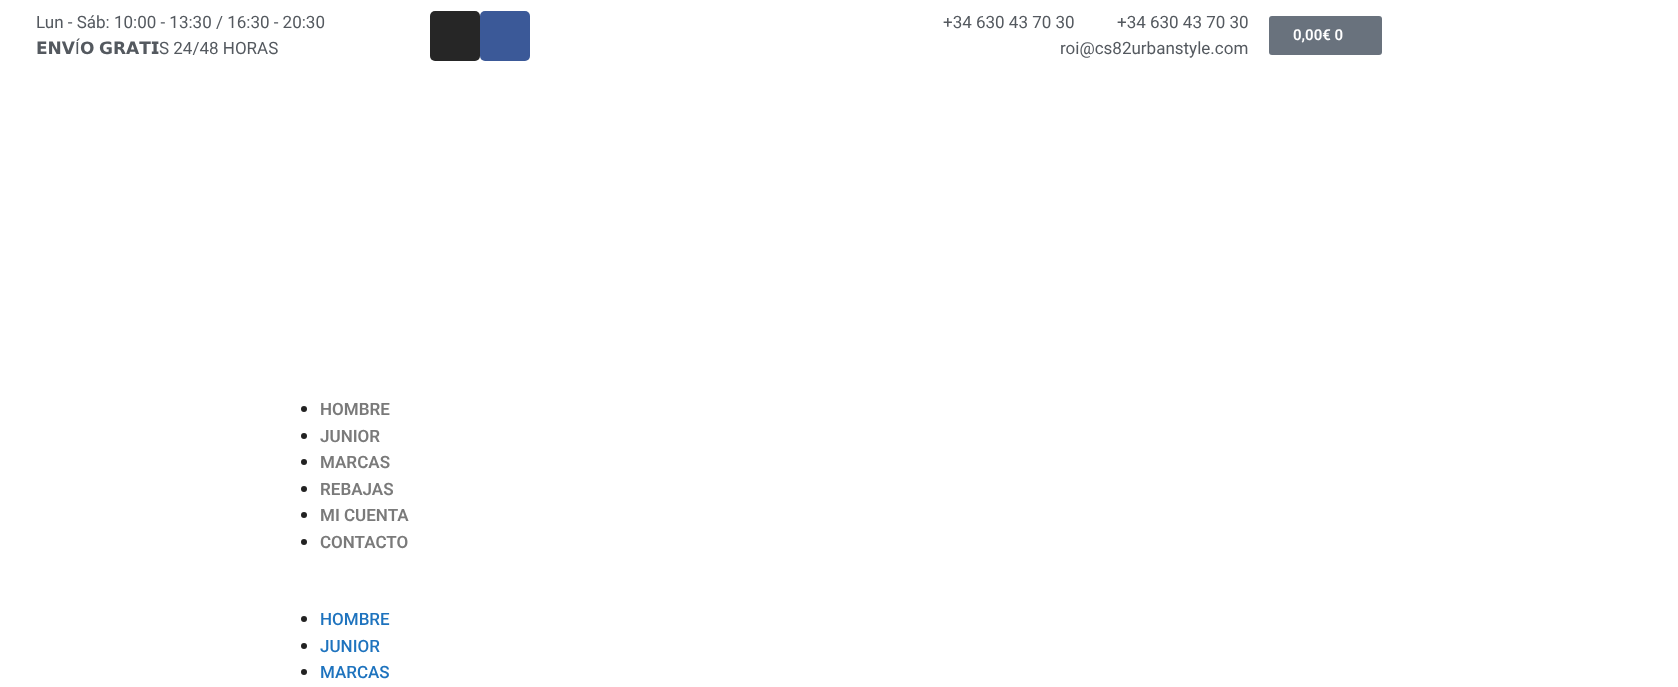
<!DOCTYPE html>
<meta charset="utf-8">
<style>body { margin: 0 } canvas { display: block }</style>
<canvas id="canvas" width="1678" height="687"></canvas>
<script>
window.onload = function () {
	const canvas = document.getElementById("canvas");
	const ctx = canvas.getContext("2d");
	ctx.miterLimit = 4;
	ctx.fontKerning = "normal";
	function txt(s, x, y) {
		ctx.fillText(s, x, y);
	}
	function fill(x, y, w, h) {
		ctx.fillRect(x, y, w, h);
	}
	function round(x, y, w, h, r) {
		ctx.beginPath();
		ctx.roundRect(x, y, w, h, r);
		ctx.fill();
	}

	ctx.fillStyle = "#FFFFFF";
	fill(0, 0, 1678, 687);
	ctx.fillStyle = "#262626";
	round(430, 11, 50, 50, 5);
	ctx.fillStyle = "#3B5998";
	round(480, 11, 50, 50, 5);
	ctx.fillStyle = "#69727D";
	round(1269, 16, 113, 39, 3);
	ctx.fillStyle = "#222222";
	ctx.beginPath();
	ctx.arc(304, 409, 3, 0, Math.PI * 2);
	ctx.fill();
	ctx.beginPath();
	ctx.arc(304, 436, 3, 0, Math.PI * 2);
	ctx.fill();
	ctx.beginPath();
	ctx.arc(304, 462, 3, 0, Math.PI * 2);
	ctx.fill();
	ctx.beginPath();
	ctx.arc(304, 489, 3, 0, Math.PI * 2);
	ctx.fill();
	ctx.beginPath();
	ctx.arc(304, 515, 3, 0, Math.PI * 2);
	ctx.fill();
	ctx.beginPath();
	ctx.arc(304, 542, 3, 0, Math.PI * 2);
	ctx.fill();
	ctx.beginPath();
	ctx.arc(304, 619, 3, 0, Math.PI * 2);
	ctx.fill();
	ctx.beginPath();
	ctx.arc(304, 646, 3, 0, Math.PI * 2);
	ctx.fill();
	ctx.beginPath();
	ctx.arc(304, 672, 3, 0, Math.PI * 2);
	ctx.fill();
	ctx.font = "17px Roboto";
	ctx.fillStyle = "#54595F";
	txt("Lun - Sáb: 10:00 - 13:30 / 16:30 - 20:30", 36, 28);
	ctx.font = "bold 17px DejaVu Sans";
	txt("𝗘𝗡𝗩", 36, 54);
	ctx.font = "17px Roboto";
	txt("Í", 75, 54);
	ctx.font = "bold 17px DejaVu Sans";
	txt("𝗢", 80, 54);
	txt("𝗚𝗥𝗔𝗧𝗜", 99, 54);
	ctx.font = "17px Roboto";
	txt("S 24/48 HORAS", 159, 54);
	txt("+34 630 43 70 30", 943, 28);
	txt("+34 630 43 70 30", 1117, 28);
	txt("roi@cs82urbanstyle.com", 1060, 54);
	ctx.font = "600 15px Roboto";
	ctx.fillStyle = "#FFFFFF";
	txt("0,00€ 0", 1293, 40);
	ctx.font = "600 17px Roboto";
	ctx.fillStyle = "#7A7A7A";
	txt("HOMBRE", 320, 415);
	txt("JUNIOR", 320, 442);
	txt("MARCAS", 320, 468);
	txt("REBAJAS", 320, 495);
	txt("MI CUENTA", 320, 521);
	txt("CONTACTO", 320, 548);
	ctx.font = "500 17px Roboto";
	ctx.fillStyle = "#1E73BE";
	txt("HOMBRE", 320, 625);
	txt("JUNIOR", 320, 652);
	txt("MARCAS", 320, 678);
};
</script>
